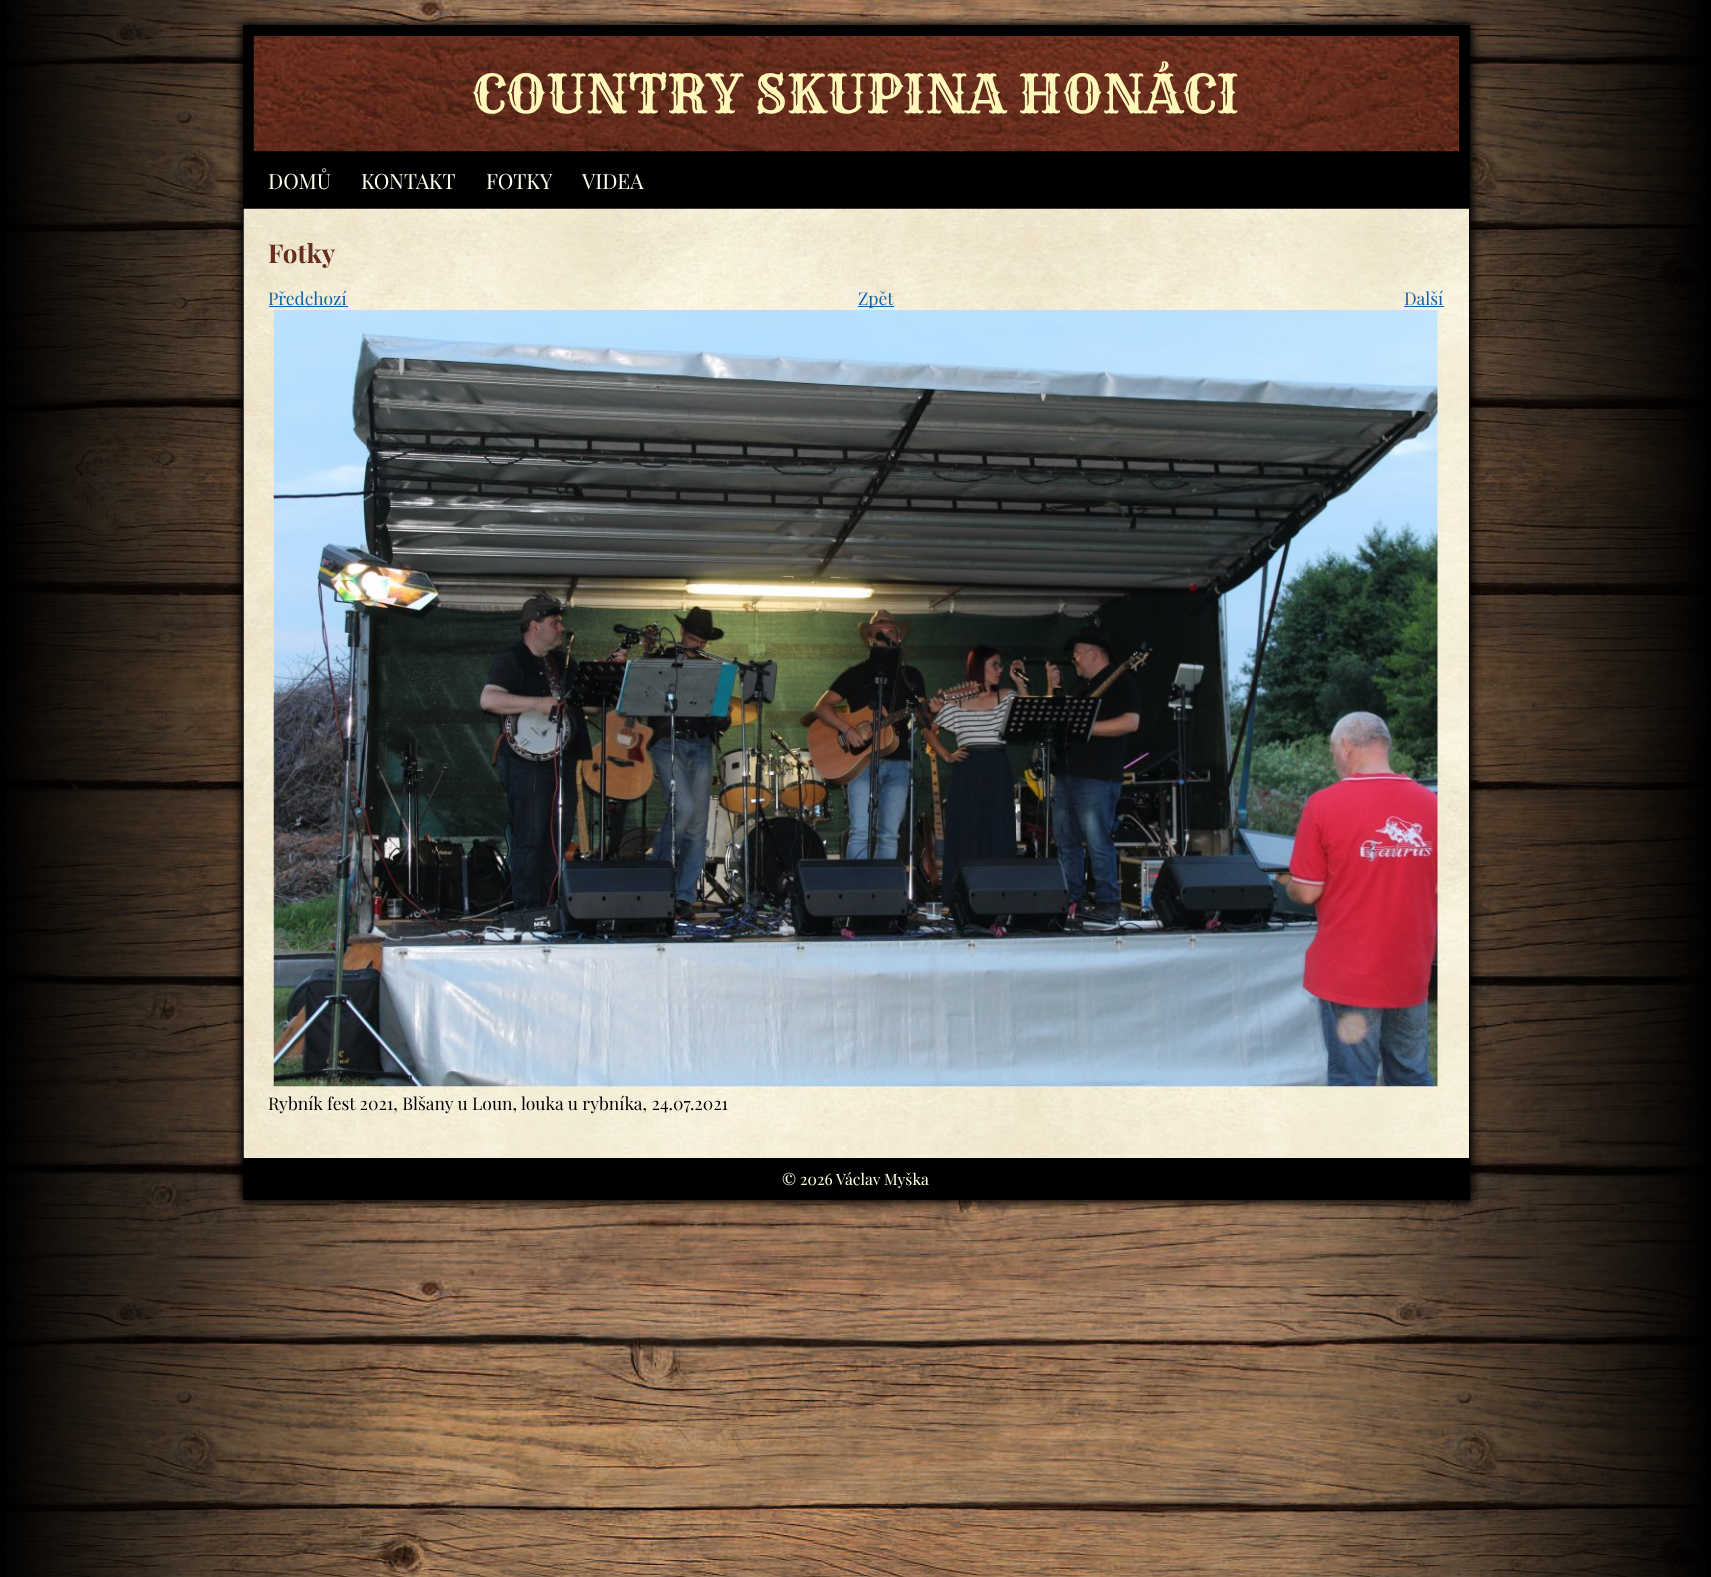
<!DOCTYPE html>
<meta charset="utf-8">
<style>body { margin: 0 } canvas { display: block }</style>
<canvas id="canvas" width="1711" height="1577"></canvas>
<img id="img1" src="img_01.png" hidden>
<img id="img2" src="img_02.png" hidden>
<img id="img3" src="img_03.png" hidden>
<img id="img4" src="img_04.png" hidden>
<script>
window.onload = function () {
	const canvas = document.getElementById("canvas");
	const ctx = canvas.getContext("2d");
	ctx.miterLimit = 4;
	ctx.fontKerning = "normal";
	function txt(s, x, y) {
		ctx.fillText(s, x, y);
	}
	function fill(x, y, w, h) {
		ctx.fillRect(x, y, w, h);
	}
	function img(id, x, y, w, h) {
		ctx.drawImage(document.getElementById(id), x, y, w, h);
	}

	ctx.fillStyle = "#FFFFFF";
	fill(0, 0, 1711, 1577);
	img("img1", 0, 0, 1711, 1577);
	ctx.fillStyle = "rgba(0, 0, 0, 0.5)";
	ctx.filter = "blur(5px)";
	ctx.beginPath();
	ctx.rect(240, 25, 1228, 1175);
	ctx.fill();
	ctx.filter = "none";
	ctx.filter = "blur(5px)";
	ctx.beginPath();
	ctx.rect(243, 28, 1227, 1175);
	ctx.fill();
	ctx.filter = "none";
	ctx.filter = "blur(5px)";
	ctx.beginPath();
	ctx.rect(245, 25, 1228, 1175);
	ctx.fill();
	ctx.filter = "none";
	ctx.filter = "blur(5px)";
	ctx.beginPath();
	ctx.rect(243, 23, 1227, 1175);
	ctx.fill();
	ctx.filter = "none";
	ctx.fillStyle = "#000000";
	fill(243, 25, 1227, 1175);
	ctx.fillStyle = "#672D1E";
	fill(254, 36, 1205, 115);
	img("img2", 253, 36, 1206, 116);
	ctx.fillStyle = "#F5EED8";
	fill(244, 209, 1225, 949);
	img("img3", 243, 208, 1226, 950);
	ctx.fillStyle = "#1062AD";
	fill(269, 306, 79, 1);
	fill(858, 306, 36, 1);
	fill(1404, 306, 40, 1);
	img("img4", 273, 310, 1165, 777);
	ctx.font = "52.5px Rye";
	ctx.fillStyle = "#FFF8BB";
	txt("COUNTRY SKUPINA HONÁCI", 472, 113);
	ctx.font = "21px Playfair Display";
	ctx.fillStyle = "#FFFFEE";
	txt("DOMŮ", 268, 189);
	txt("KONTAKT", 361, 189);
	txt("FOTKY", 486, 189);
	txt("VIDEA", 582, 189);
	ctx.font = "bold 26px Playfair Display";
	ctx.fillStyle = "#672D1E";
	txt("Fotky", 268, 263);
	ctx.font = "17.5px Playfair Display";
	ctx.fillStyle = "#1062AD";
	txt("Předchozí", 268, 305);
	txt("Zpět", 858, 305);
	txt("Další", 1404, 305);
	ctx.fillStyle = "#000000";
	txt("Rybník fest 2021, Blšany u Loun, louka u rybníka, 24.07.2021", 268, 1110);
	ctx.font = "15.75px Playfair Display";
	ctx.fillStyle = "#FFFFDD";
	txt("© 2026 Václav Myška", 782, 1185);
};
</script>
